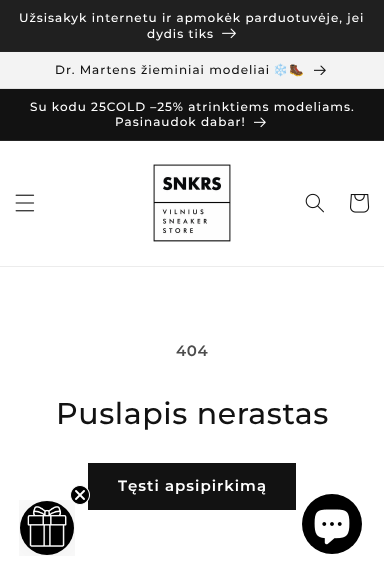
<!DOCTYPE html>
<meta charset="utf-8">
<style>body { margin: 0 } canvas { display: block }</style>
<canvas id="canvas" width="384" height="575"></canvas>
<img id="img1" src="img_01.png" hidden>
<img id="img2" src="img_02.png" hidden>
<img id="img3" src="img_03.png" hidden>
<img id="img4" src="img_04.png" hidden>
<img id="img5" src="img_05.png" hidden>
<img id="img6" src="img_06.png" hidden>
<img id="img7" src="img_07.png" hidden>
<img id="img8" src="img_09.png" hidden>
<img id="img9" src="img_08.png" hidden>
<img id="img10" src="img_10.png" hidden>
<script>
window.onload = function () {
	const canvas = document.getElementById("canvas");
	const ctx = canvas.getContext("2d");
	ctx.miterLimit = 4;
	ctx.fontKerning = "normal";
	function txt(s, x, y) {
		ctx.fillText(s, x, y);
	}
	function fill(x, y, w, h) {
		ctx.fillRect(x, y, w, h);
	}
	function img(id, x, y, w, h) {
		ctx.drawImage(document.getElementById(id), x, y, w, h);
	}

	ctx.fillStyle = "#FFFFFF";
	fill(0, 0, 384, 575);
	ctx.fillStyle = "#252525";
	fill(0, 51, 384, 1);
	ctx.fillStyle = "#202020";
	fill(0, 0, 384, 51);
	img("img1", 222, 28, 14, 11);
	ctx.fillStyle = "#F3F3F3";
	fill(0, 52, 384, 36);
	ctx.fillStyle = "#E1E1E1";
	fill(0, 88, 384, 1);
	img("img2", 314, 65, 12, 10);
	ctx.fillStyle = "#121212";
	fill(0, 89, 384, 51);
	ctx.fillStyle = "#252525";
	fill(0, 140, 384, 1);
	img("img3", 254, 117, 12, 11);
	ctx.fillStyle = "#ECECEC";
	fill(0, 266, 384, 1);
	img("img4", 15, 194, 20, 18);
	img("img5", 153, 164, 78, 78);
	img("img6", 305, 193, 19, 20);
	img("img7", 350, 194, 20, 19);
	ctx.fillStyle = "#121212";
	fill(88, 463, 208, 47);
	img("img8", 19, 500, 56, 56);
	img("img9", 70, 485, 20, 20);
	ctx.fillStyle = "#000000";
	ctx.beginPath();
	ctx.arc(332, 524, 30, 0, Math.PI * 2);
	ctx.fill();
	img("img10", 314, 509, 36, 36);
	ctx.letterSpacing = "1px";
	ctx.font = "500 12px Montserrat";
	ctx.fillStyle = "#FFFFFF";
	txt("Užsisakyk internetu ir apmokėk parduotuvėje, jei", 19, 22);
	txt("dydis tiks", 147, 38);
	ctx.fillStyle = "#121212";
	txt("Dr. Martens žieminiai modeliai", 55, 74);
	ctx.font = "12px Noto Color Emoji";
	txt("❄️🥾", 273, 74);
	ctx.font = "500 12px Montserrat";
	ctx.fillStyle = "#FFFFFF";
	txt("Su kodu 25COLD –25% atrinktiems modeliams.", 30, 111);
	txt("Pasinaudok dabar!", 115, 126);
	ctx.letterSpacing = "0.6px";
	ctx.font = "600 15px Montserrat";
	ctx.fillStyle = "#4D4D4D";
	txt("404", 176, 356);
	ctx.font = "500 30px Montserrat";
	ctx.fillStyle = "#121212";
	txt("Puslapis nerastas", 56, 424);
	ctx.letterSpacing = "1px";
	ctx.font = "600 15px Montserrat";
	ctx.fillStyle = "#FFFFFF";
	txt("Tęsti apsipirkimą", 118, 491);
};
</script>
